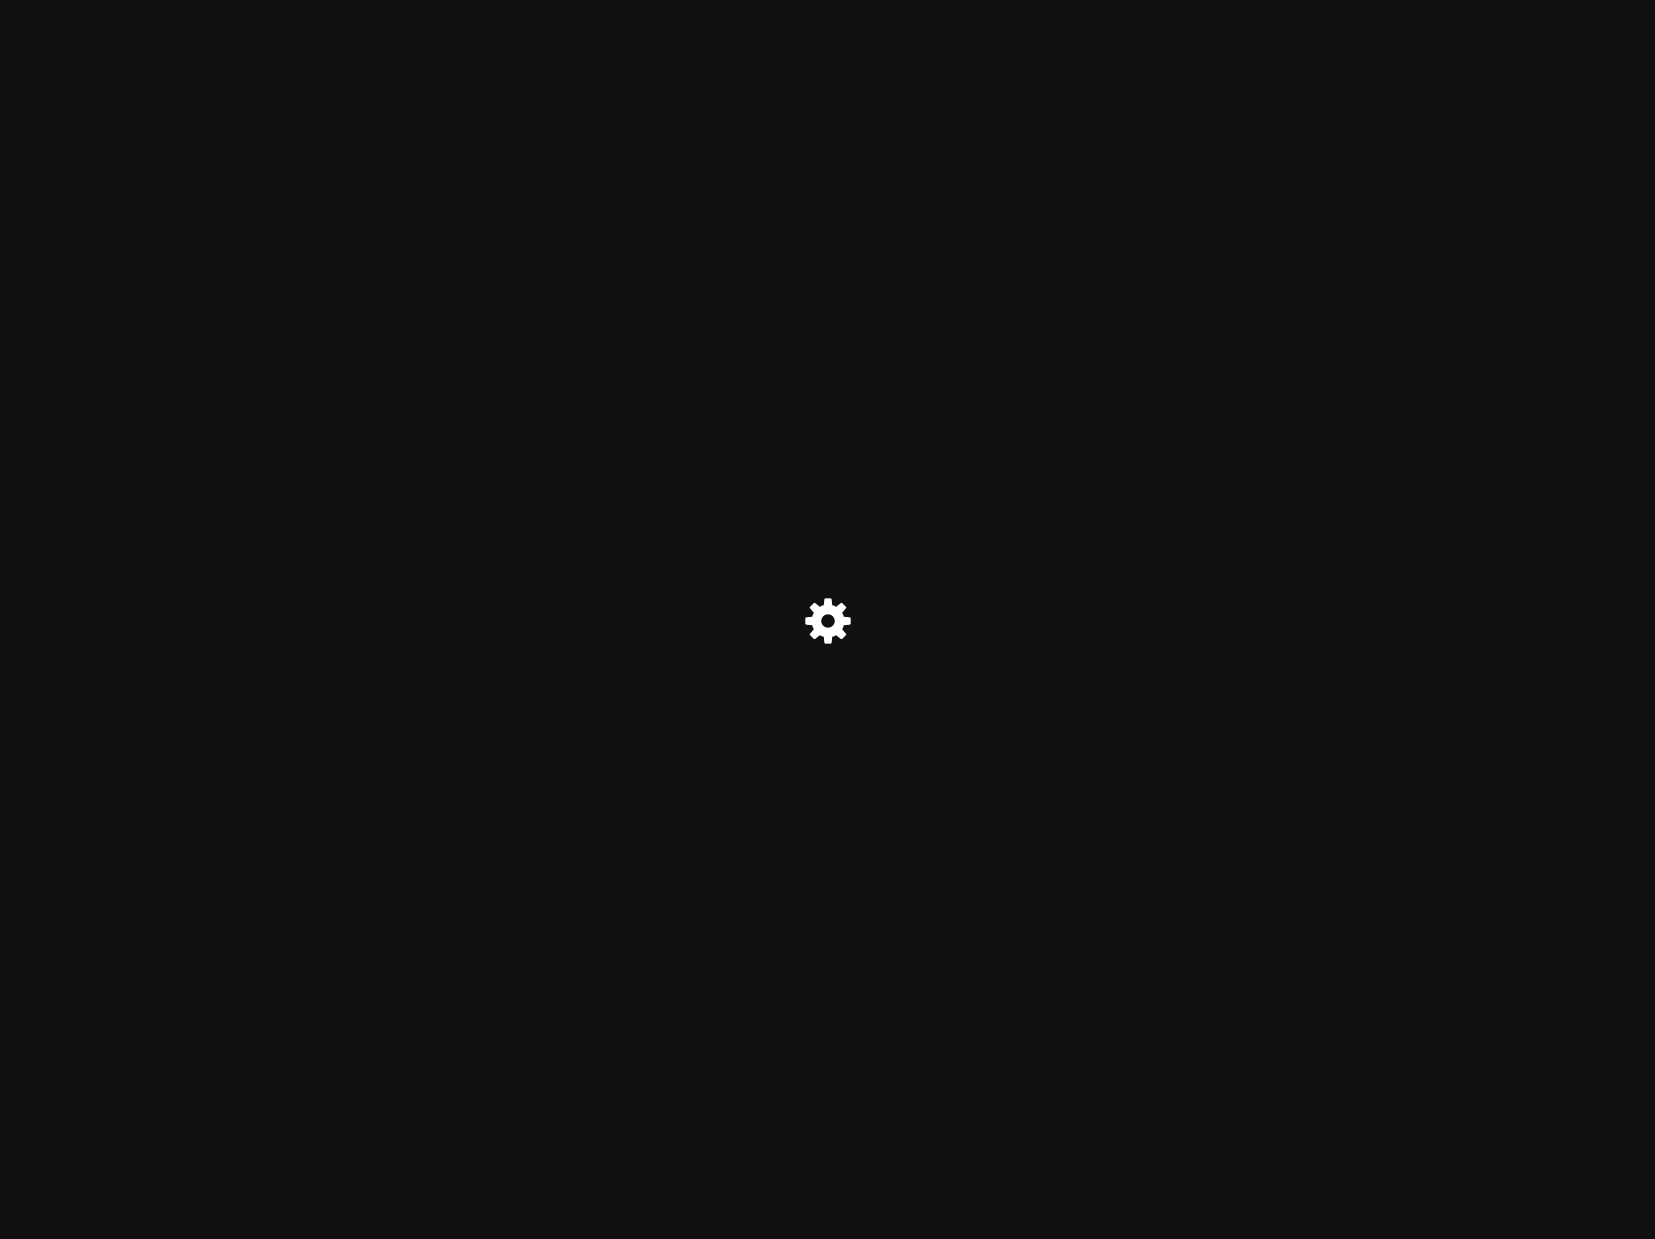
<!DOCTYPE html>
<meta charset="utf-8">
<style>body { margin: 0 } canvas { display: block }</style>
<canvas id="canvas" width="1655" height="1239"></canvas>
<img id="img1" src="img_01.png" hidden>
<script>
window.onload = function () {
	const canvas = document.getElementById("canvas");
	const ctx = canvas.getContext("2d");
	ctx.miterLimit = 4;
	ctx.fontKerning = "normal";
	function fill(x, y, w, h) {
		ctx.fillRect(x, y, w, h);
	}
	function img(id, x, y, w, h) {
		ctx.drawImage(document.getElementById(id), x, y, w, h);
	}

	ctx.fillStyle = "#111111";
	fill(0, 0, 1655, 1239);
	img("img1", 805, 598, 46, 46);
};
</script>
